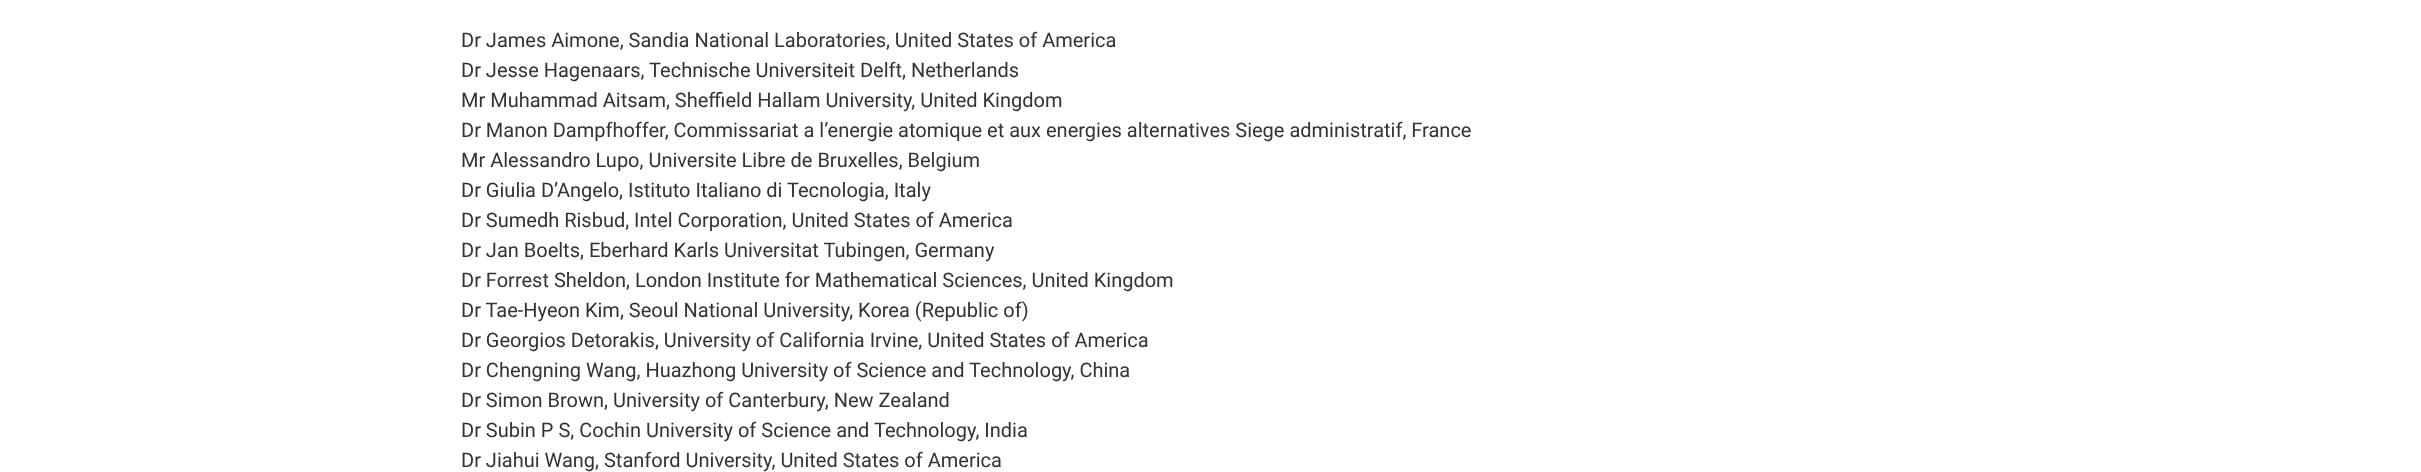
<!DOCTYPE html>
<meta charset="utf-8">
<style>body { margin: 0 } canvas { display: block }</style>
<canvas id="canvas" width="2421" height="472"></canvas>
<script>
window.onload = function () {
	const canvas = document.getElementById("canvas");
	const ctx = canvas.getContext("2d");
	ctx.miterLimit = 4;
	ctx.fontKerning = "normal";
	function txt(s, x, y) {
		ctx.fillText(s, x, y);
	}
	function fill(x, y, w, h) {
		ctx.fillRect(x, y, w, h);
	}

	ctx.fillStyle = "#FFFFFF";
	fill(0, 0, 2421, 472);
	ctx.font = "20px Roboto";
	ctx.fillStyle = "#333333";
	txt("Dr James Aimone, Sandia National Laboratories, United States of America", 461, 47);
	txt("Dr Jesse Hagenaars, Technische Universiteit Delft, Netherlands", 461, 77);
	txt("Mr Muhammad Aitsam, Sheffield Hallam University, United Kingdom", 461, 107);
	txt("Dr Manon Dampfhoffer, Commissariat a l’energie atomique et aux energies alternatives Siege administratif, France", 461, 137);
	txt("Mr Alessandro Lupo, Universite Libre de Bruxelles, Belgium", 461, 167);
	txt("Dr Giulia D’Angelo, Istituto Italiano di Tecnologia, Italy", 461, 197);
	txt("Dr Sumedh Risbud, Intel Corporation, United States of America", 461, 227);
	txt("Dr Jan Boelts, Eberhard Karls Universitat Tubingen, Germany", 461, 257);
	txt("Dr Forrest Sheldon, London Institute for Mathematical Sciences, United Kingdom", 461, 287);
	txt("Dr Tae-Hyeon Kim, Seoul National University, Korea (Republic of)", 461, 317);
	txt("Dr Georgios Detorakis, University of California Irvine, United States of America", 461, 347);
	txt("Dr Chengning Wang, Huazhong University of Science and Technology, China", 461, 377);
	txt("Dr Simon Brown, University of Canterbury, New Zealand", 461, 407);
	txt("Dr Subin P S, Cochin University of Science and Technology, India", 461, 437);
	txt("Dr Jiahui Wang, Stanford University, United States of America", 461, 467);
};
</script>
